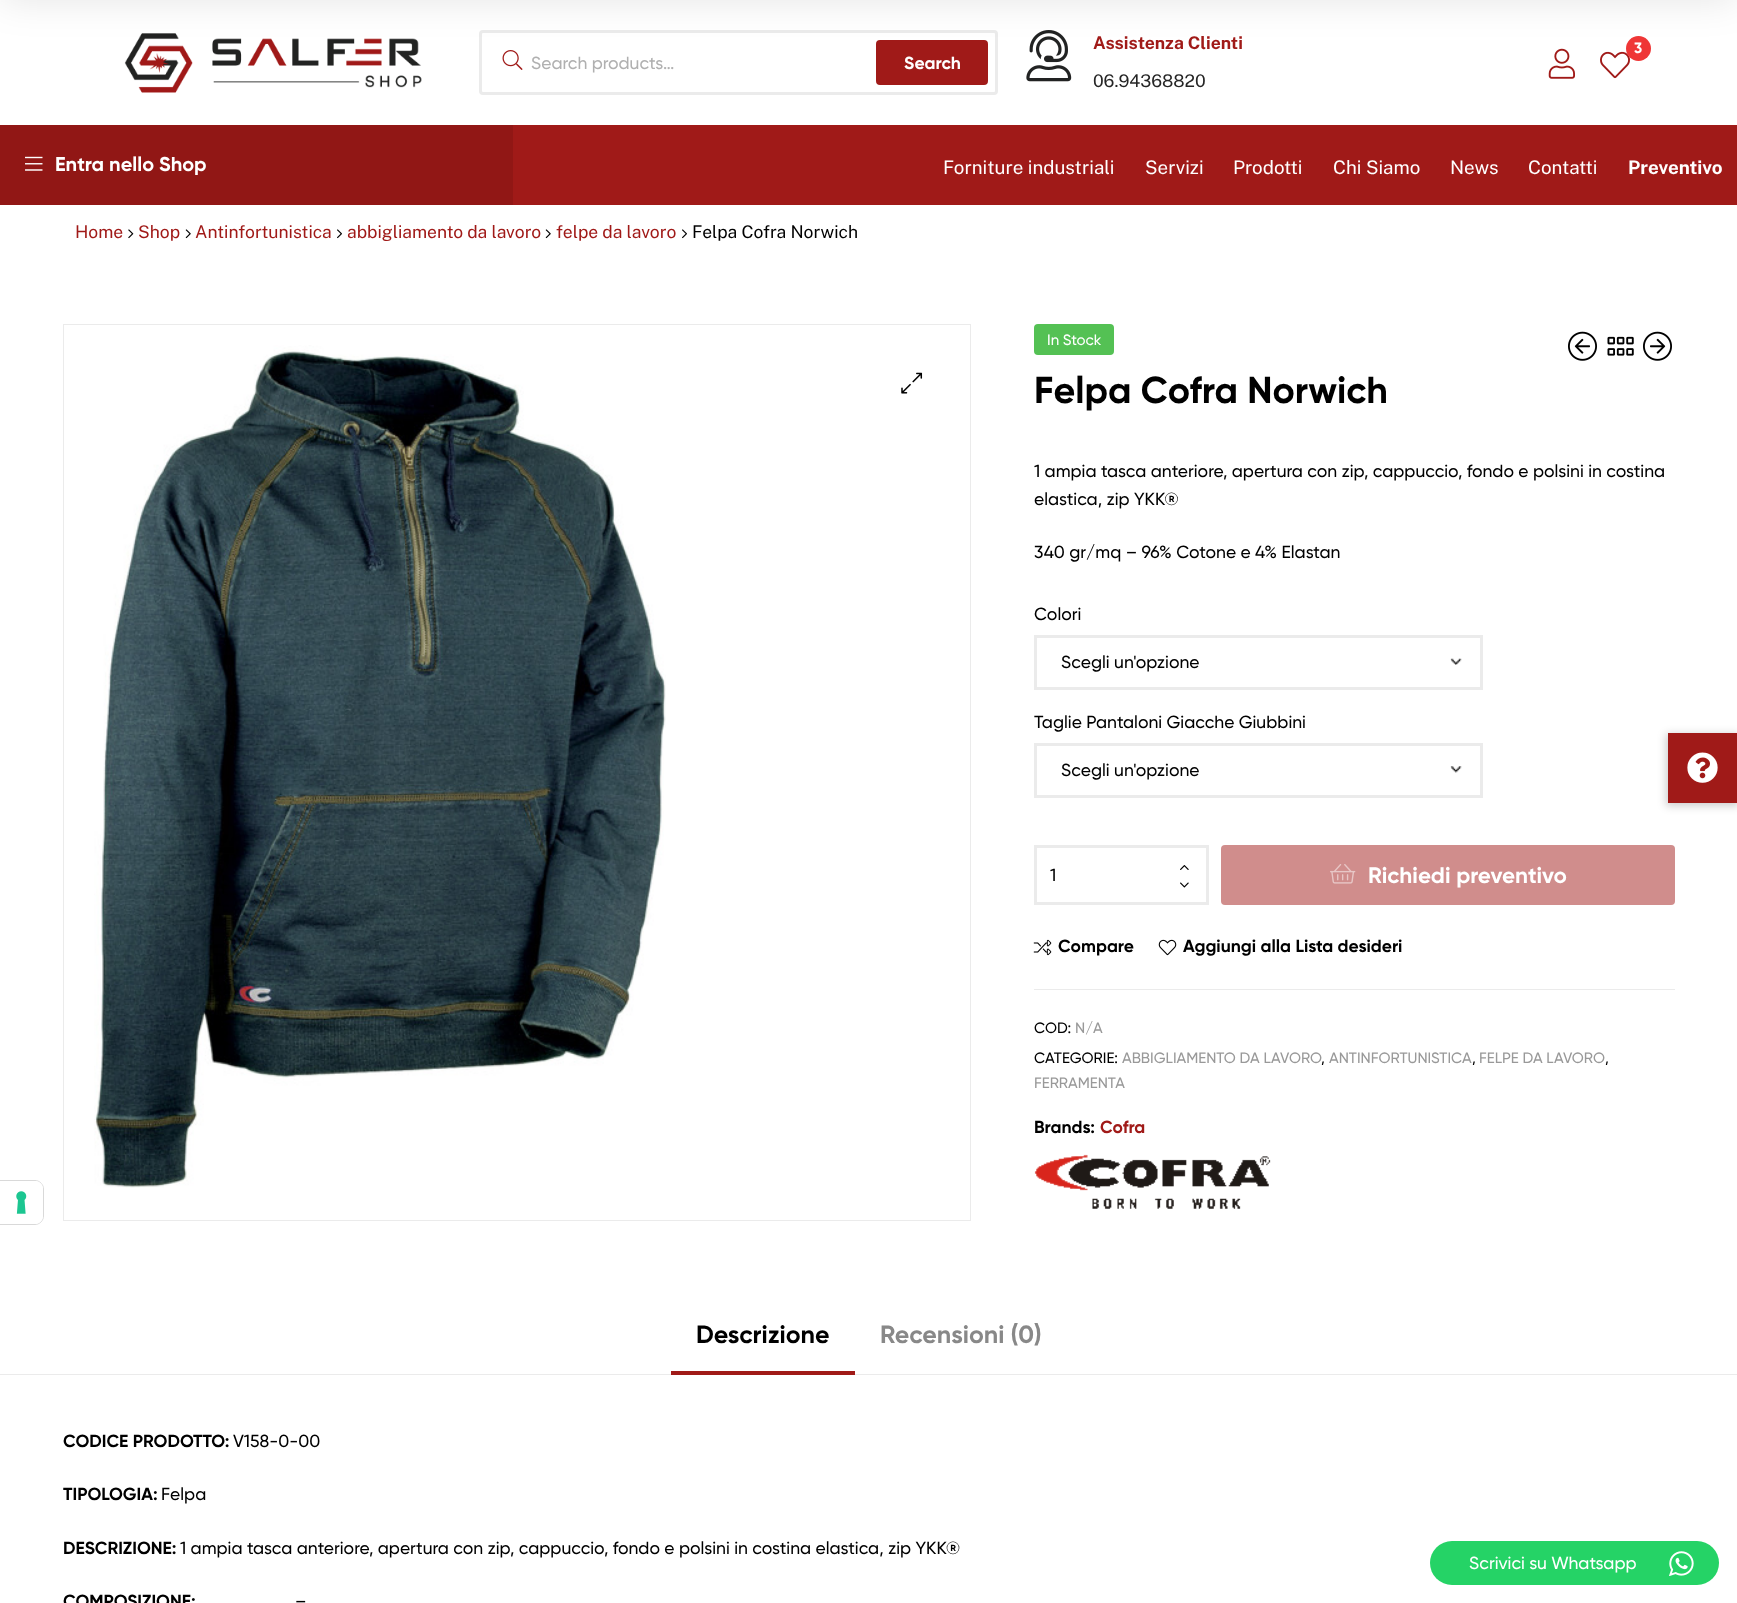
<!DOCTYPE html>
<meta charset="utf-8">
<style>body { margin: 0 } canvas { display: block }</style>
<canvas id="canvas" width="1737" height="1603"></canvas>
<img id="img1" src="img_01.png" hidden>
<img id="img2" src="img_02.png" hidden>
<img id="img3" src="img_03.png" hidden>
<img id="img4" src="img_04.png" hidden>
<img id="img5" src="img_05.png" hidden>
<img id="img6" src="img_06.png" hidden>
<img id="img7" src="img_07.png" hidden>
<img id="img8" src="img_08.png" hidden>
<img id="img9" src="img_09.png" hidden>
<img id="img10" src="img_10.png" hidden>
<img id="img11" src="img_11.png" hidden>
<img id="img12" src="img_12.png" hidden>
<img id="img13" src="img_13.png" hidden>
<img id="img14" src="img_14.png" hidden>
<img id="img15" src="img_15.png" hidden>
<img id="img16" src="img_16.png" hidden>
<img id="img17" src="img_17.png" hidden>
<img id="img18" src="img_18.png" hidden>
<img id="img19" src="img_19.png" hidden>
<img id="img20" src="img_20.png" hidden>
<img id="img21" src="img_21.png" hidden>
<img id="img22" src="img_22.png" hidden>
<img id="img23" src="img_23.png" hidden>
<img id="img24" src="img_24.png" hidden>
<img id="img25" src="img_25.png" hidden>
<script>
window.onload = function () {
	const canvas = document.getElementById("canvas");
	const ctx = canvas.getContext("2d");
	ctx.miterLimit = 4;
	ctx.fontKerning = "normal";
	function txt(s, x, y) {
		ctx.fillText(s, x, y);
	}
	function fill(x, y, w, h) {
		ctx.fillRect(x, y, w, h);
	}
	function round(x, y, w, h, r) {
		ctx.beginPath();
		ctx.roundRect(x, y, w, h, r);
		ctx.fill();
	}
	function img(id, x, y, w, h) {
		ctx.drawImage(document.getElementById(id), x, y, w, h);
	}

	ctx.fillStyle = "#FFFFFF";
	fill(0, 0, 1737, 1603);
	img("img1", 124, 33, 298, 60);
	img("img2", 1026, 30, 46, 52);
	img("img3", 1548, 48, 27, 31);
	img("img4", 1600, 51, 30, 28);
	ctx.fillStyle = "#EF3636";
	ctx.beginPath();
	ctx.arc(1638.5, 48.5, 12.5, 0, Math.PI * 2);
	ctx.fill();
	ctx.beginPath();
	ctx.roundRect(480.5, 31.5, 516, 62, 2.5);
	ctx.strokeStyle = "#EBEBEB";
	ctx.lineWidth = 3;
	ctx.stroke();
	img("img5", 502, 50, 21, 20);
	ctx.fillStyle = "#A01A18";
	ctx.beginPath();
	ctx.roundRect(877.5, 41.5, 109, 42, 2.5);
	ctx.fill();
	ctx.strokeStyle = "#A01A18";
	ctx.stroke();
	ctx.fillStyle = "rgba(0, 0, 0, 0.1)";
	ctx.filter = "blur(19px)";
	ctx.beginPath();
	ctx.rect(0, -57, 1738, 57);
	ctx.fill();
	ctx.filter = "none";
	ctx.fillStyle = "#A01A18";
	fill(513, 125, 1224, 80);
	ctx.fillStyle = "#911715";
	fill(0, 125, 513, 80);
	img("img6", 25, 156, 18, 15);
	img("img7", 128, 229, 6, 10);
	img("img8", 185, 229, 6, 10);
	img("img9", 337, 229, 5, 10);
	img("img8", 545, 229, 6, 10);
	img("img9", 682, 229, 5, 10);
	ctx.strokeStyle = "#EBEBEB";
	ctx.lineWidth = 1;
	ctx.strokeRect(63.5, 324.5, 907, 896);
	img("img10", 94, 345, 572, 843);
	img("img11", 901, 372, 22, 22);
	ctx.fillStyle = "#54C154";
	round(1034, 324, 80, 31, 4);
	img("img12", 1568, 331, 29, 30);
	img("img13", 1607, 336, 27, 20);
	img("img14", 1643, 331, 29, 30);
	img("img15", 1450, 658, 12, 7);
	ctx.lineWidth = 3;
	ctx.strokeRect(1035.5, 636.5, 446, 52);
	img("img16", 1450, 766, 12, 7);
	ctx.strokeRect(1035.5, 744.5, 446, 52);
	ctx.strokeRect(1035.5, 846.5, 172, 57);
	img("img17", 1180, 865, 9, 5);
	img("img18", 1180, 882, 9, 6);
	ctx.fillStyle = "#D08D8C";
	round(1221, 845, 454, 60, 4);
	img("img19", 1330, 864, 26, 20);
	img("img20", 1033, 939, 19, 17);
	img("img21", 1158, 939, 19, 17);
	ctx.fillStyle = "#EBEBEB";
	fill(1034, 989, 641, 1);
	img("img22", 1034, 1154, 237, 55);
	fill(0, 1374, 1737, 1);
	ctx.fillStyle = "#A01A18";
	fill(671, 1371, 184, 4);
	ctx.fillStyle = "rgba(0, 0, 0, 0.2)";
	ctx.filter = "blur(4px)";
	ctx.beginPath();
	ctx.rect(1666, 734, 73, 72);
	ctx.fill();
	ctx.filter = "none";
	ctx.fillStyle = "#A01A18";
	fill(1668, 733, 69, 70);
	img("img23", 1687, 752, 31, 31);
	ctx.beginPath();
	ctx.moveTo(-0.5, 1180.5);
	ctx.lineTo(35, 1180.5);
	ctx.bezierCurveTo(39.5, 1180.5, 43.5, 1184.5, 43.5, 1189);
	ctx.lineTo(43.5, 1216);
	ctx.bezierCurveTo(43.5, 1220.5, 39.5, 1224.5, 35, 1224.5);
	ctx.lineTo(-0.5, 1224.5);
	ctx.closePath();
	ctx.strokeStyle = "#D9D9D9";
	ctx.lineWidth = 1;
	ctx.stroke();
	ctx.fillStyle = "#FFFFFF";
	ctx.beginPath();
	ctx.roundRect(0, 1181, 43, 43, [0, 8, 8, 0]);
	ctx.fill();
	img("img24", 16, 1191, 11, 23);
	ctx.fillStyle = "#25D366";
	round(1430, 1541, 289, 44, 22);
	img("img25", 1669, 1551, 25, 25);
	ctx.font = "bold 17.5px Public Sans";
	ctx.fillStyle = "#A01A18";
	txt("Assistenza Clienti", 1093, 49);
	ctx.font = "17.5px Public Sans";
	ctx.fillStyle = "#252525";
	txt("06.94368820", 1093, 87);
	ctx.font = "bold 15px Gilroy";
	ctx.fillStyle = "#FFFFFF";
	txt("3", 1634, 53);
	ctx.font = "500 17.5px Gilroy";
	ctx.fillStyle = "#B0B0B0";
	txt("Search products…", 531, 69);
	ctx.font = "bold 17.5px Gilroy";
	ctx.fillStyle = "#FFFFFF";
	txt("Search", 904, 69);
	ctx.font = "bold 20px Gilroy";
	txt("Entra nello Shop", 55, 171);
	ctx.font = "18.75px Public Sans";
	txt("Forniture industriali", 943, 174);
	txt("Servizi", 1145, 174);
	txt("Prodotti", 1233, 174);
	txt("Chi Siamo", 1333, 174);
	txt("News", 1450, 174);
	txt("Contatti", 1528, 174);
	ctx.font = "bold 18.75px Public Sans";
	txt("Preventivo", 1628, 174);
	ctx.font = "17.5px Public Sans";
	ctx.fillStyle = "#A01A18";
	txt("Home", 75, 238);
	txt("Shop", 138, 238);
	txt("Antinfortunistica", 195, 238);
	txt("abbigliamento da lavoro", 347, 238);
	txt("felpe da lavoro", 556, 238);
	ctx.fillStyle = "#000000";
	txt("Felpa Cofra Norwich", 692, 238);
	ctx.font = "500 15px Gilroy";
	ctx.fillStyle = "#FFFFFF";
	txt("In Stock", 1047, 345);
	ctx.font = "bold 37.5px Gilroy";
	ctx.fillStyle = "#000000";
	txt("Felpa Cofra Norwich", 1034, 403);
	ctx.font = "500 17.5px Gilroy";
	txt("1 ampia tasca anteriore, apertura con zip, cappuccio, fondo e polsini in costina", 1034, 477);
	txt("elastica, zip YKK®", 1034, 505);
	txt("340 gr/mq – 96% Cotone e 4% Elastan", 1034, 558);
	txt("Colori", 1034, 620);
	txt("Scegli un'opzione", 1061, 668);
	txt("Taglie Pantaloni Giacche Giubbini", 1034, 728);
	txt("Scegli un'opzione", 1061, 776);
	txt("1", 1050, 881);
	ctx.font = "bold 22.5px Gilroy";
	ctx.fillStyle = "#FFFFFF";
	txt("Richiedi preventivo", 1368, 883);
	ctx.font = "bold 17.5px Gilroy";
	ctx.fillStyle = "#000000";
	txt("Compare", 1058, 952);
	txt("Aggiungi alla Lista desideri", 1183, 952);
	ctx.font = "500 15px Gilroy";
	txt("COD:", 1034, 1033);
	ctx.fillStyle = "#999999";
	txt("N/A", 1075, 1033);
	ctx.fillStyle = "#000000";
	txt("CATEGORIE:", 1034, 1063);
	ctx.fillStyle = "#999999";
	txt("ABBIGLIAMENTO DA LAVORO", 1122, 1063);
	ctx.fillStyle = "#000000";
	txt(",", 1321, 1063);
	ctx.fillStyle = "#999999";
	txt("ANTINFORTUNISTICA", 1329, 1063);
	ctx.fillStyle = "#000000";
	txt(",", 1472, 1063);
	ctx.fillStyle = "#999999";
	txt("FELPE DA LAVORO", 1479, 1063);
	ctx.fillStyle = "#000000";
	txt(",", 1605, 1063);
	ctx.fillStyle = "#999999";
	txt("FERRAMENTA", 1034, 1088);
	ctx.font = "bold 17.5px Gilroy";
	ctx.fillStyle = "#000000";
	txt("Brands:", 1034, 1133);
	ctx.fillStyle = "#A01A18";
	txt("Cofra", 1100, 1133);
	ctx.font = "bold 25px Gilroy";
	ctx.fillStyle = "#000000";
	txt("Descrizione", 696, 1343);
	ctx.fillStyle = "#888888";
	txt("Recensioni (0)", 880, 1343);
	ctx.font = "bold 17.5px Gilroy";
	ctx.fillStyle = "#000000";
	txt("CODICE PRODOTTO:", 63, 1447);
	ctx.font = "500 17.5px Gilroy";
	txt("V158-0-00", 233, 1447);
	ctx.font = "bold 17.5px Gilroy";
	txt("TIPOLOGIA:", 63, 1500);
	ctx.font = "500 17.5px Gilroy";
	txt("Felpa", 161, 1500);
	ctx.font = "bold 17.5px Gilroy";
	txt("DESCRIZIONE:", 63, 1554);
	ctx.font = "500 17.5px Gilroy";
	txt("1 ampia tasca anteriore, apertura con zip, cappuccio, fondo e polsini in costina elastica, zip YKK®", 180, 1554);
	ctx.font = "bold 17.5px Gilroy";
	txt("COMPOSIZIONE:", 63, 1607);
	ctx.font = "500 17.5px Gilroy";
	txt("–", 295, 1607);
	ctx.fillStyle = "#FFFFFF";
	txt("Scrivici su Whatsapp", 1469, 1569);
};
</script>
